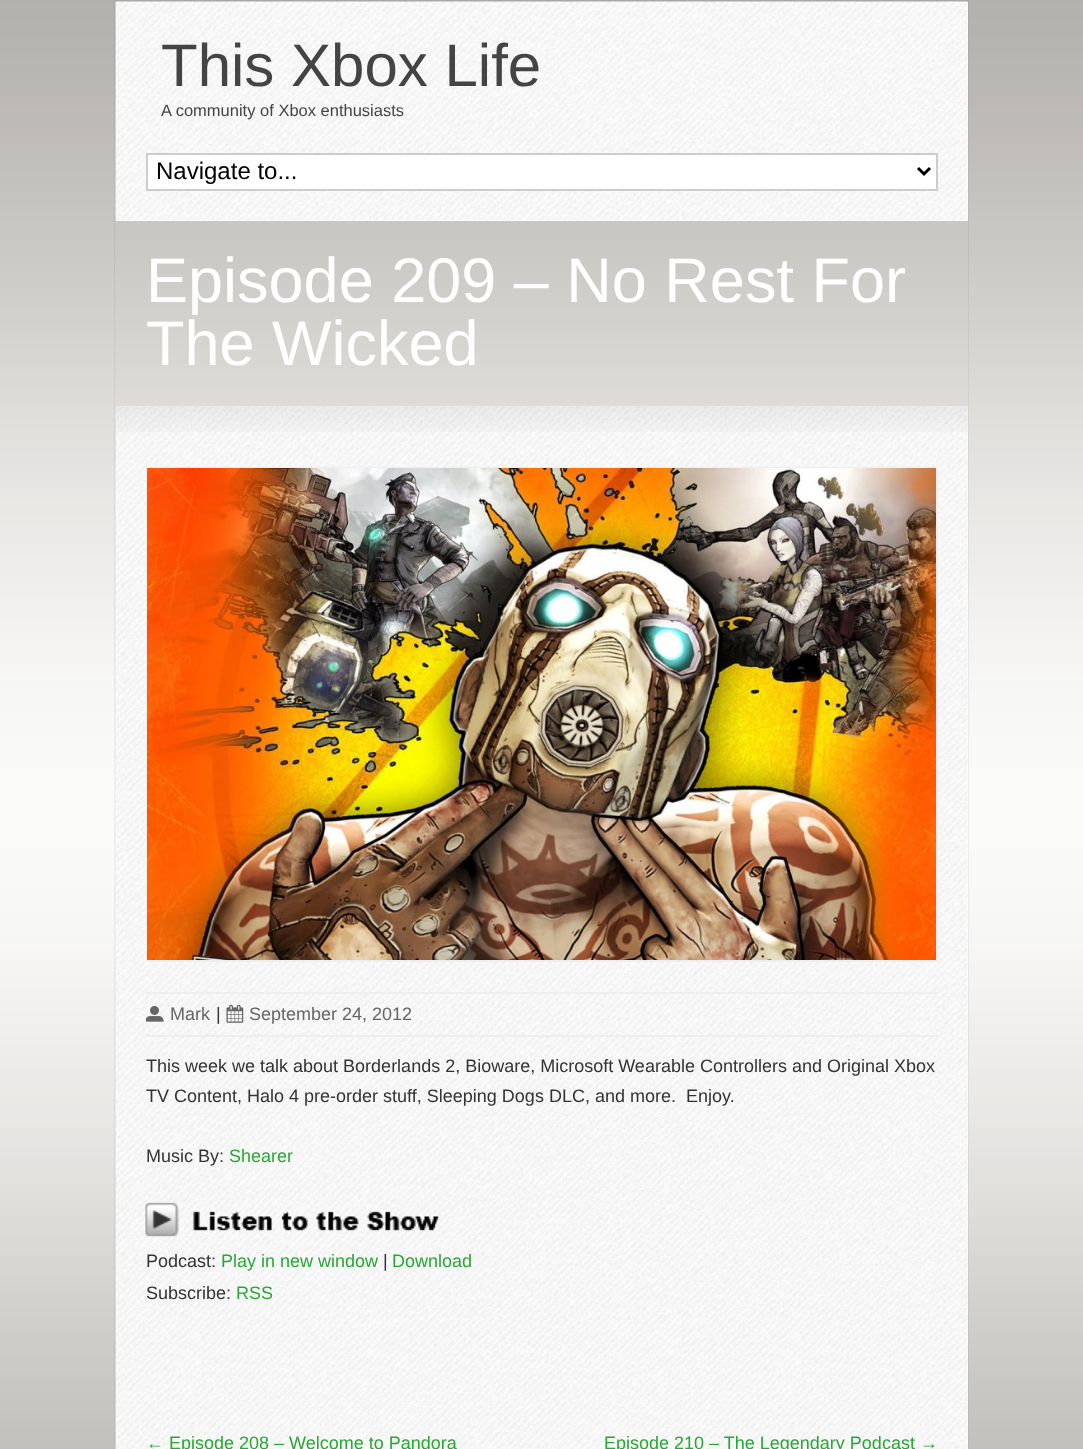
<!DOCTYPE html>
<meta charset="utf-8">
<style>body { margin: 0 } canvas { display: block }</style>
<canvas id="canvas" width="1083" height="1449"></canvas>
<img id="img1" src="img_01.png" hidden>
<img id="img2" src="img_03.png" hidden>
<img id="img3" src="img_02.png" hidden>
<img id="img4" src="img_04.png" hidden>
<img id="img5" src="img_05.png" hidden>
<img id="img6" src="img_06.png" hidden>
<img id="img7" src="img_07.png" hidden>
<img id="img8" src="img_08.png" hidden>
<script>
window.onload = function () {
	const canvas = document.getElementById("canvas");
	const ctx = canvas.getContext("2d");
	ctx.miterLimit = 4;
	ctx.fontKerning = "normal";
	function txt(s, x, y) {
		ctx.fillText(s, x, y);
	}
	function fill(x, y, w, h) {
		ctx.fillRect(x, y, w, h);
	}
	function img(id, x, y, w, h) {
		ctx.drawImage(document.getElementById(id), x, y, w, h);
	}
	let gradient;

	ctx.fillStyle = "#FFFFFF";
	fill(0, 0, 1083, 1449);
	img("img1", 0, 0, 1083, 1449);
	ctx.strokeStyle = "rgba(0, 0, 0, 0.05)";
	ctx.lineWidth = 2;
	ctx.strokeRect(115, 1, 853, 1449);
	img("img2", 115, 220, 853, 187);
	ctx.fillStyle = "#FEFEFE";
	fill(116, 2, 852, 219);
	img("img3", 115, 1, 853, 220);
	ctx.fillStyle = "#FFFFFF";
	ctx.beginPath();
	ctx.rect(147, 154, 790, 36);
	ctx.fill();
	ctx.strokeStyle = "#CCCCCC";
	ctx.stroke();
	ctx.beginPath();
	ctx.moveTo(918, 168);
	ctx.lineTo(924, 174);
	ctx.lineTo(930, 168);
	ctx.strokeStyle = "#000000";
	ctx.lineWidth = 3;
	ctx.stroke();
	ctx.fillStyle = "#FEFEFE";
	fill(967, 407, 1, 1042);
	img("img4", 115, 406, 853, 1043);
	gradient = ctx.createLinearGradient(542, 406, 542, 447);
	gradient.addColorStop(0, "rgba(0, 0, 0, 0.06)");
	gradient.addColorStop(1, "rgba(0, 0, 0, 0)");
	ctx.fillStyle = gradient;
	fill(116, 407, 852, 25);
	ctx.strokeStyle = "#EEEEEE";
	ctx.lineWidth = 2;
	ctx.strokeRect(147, 468, 790, 493);
	img("img5", 147, 468, 789, 492);
	ctx.fillStyle = "#EEEEEE";
	fill(146, 992, 792, 2);
	fill(146, 1035, 792, 2);
	img("img6", 146, 1005, 18, 17);
	img("img7", 226, 1004, 18, 19);
	img("img8", 145, 1202, 294, 35);
	ctx.font = "60px Liberation Sans";
	ctx.fillStyle = "#444444";
	txt("This Xbox Life", 161, 86);
	ctx.font = "16.5px Liberation Sans";
	txt("A community of Xbox enthusiasts", 161, 116);
	ctx.font = "24px Liberation Sans";
	ctx.fillStyle = "#000000";
	txt("Navigate to...", 156, 179);
	ctx.font = "63px Liberation Sans";
	ctx.fillStyle = "#FFFFFF";
	txt("Episode 209 – No Rest For", 146, 302);
	txt("The Wicked", 146, 365);
	ctx.font = "18px Liberation Sans";
	ctx.fillStyle = "#666666";
	txt("Mark", 170, 1020);
	ctx.fillStyle = "#333333";
	txt("|", 216, 1020);
	ctx.fillStyle = "#666666";
	txt("September 24, 2012", 249, 1020);
	ctx.fillStyle = "#333333";
	txt("This week we talk about Borderlands 2, Bioware, Microsoft Wearable Controllers and Original Xbox", 146, 1072);
	txt("TV Content, Halo 4 pre-order stuff, Sleeping Dogs DLC, and more.  Enjoy.", 146, 1102);
	txt("Music By:", 146, 1162);
	ctx.fillStyle = "#28A735";
	txt("Shearer", 229, 1162);
	ctx.fillStyle = "#333333";
	txt("Podcast:", 146, 1267);
	ctx.fillStyle = "#28A735";
	txt("Play in new window", 221, 1267);
	ctx.fillStyle = "#333333";
	txt("|", 383, 1267);
	ctx.fillStyle = "#28A735";
	txt("Download", 392, 1267);
	ctx.fillStyle = "#333333";
	txt("Subscribe:", 146, 1299);
	ctx.fillStyle = "#28A735";
	txt("RSS", 236, 1299);
	txt("← Episode 208 – Welcome to Pandora", 146, 1449);
	txt("Episode 210 – The Legendary Podcast →", 604, 1449);
};
</script>
